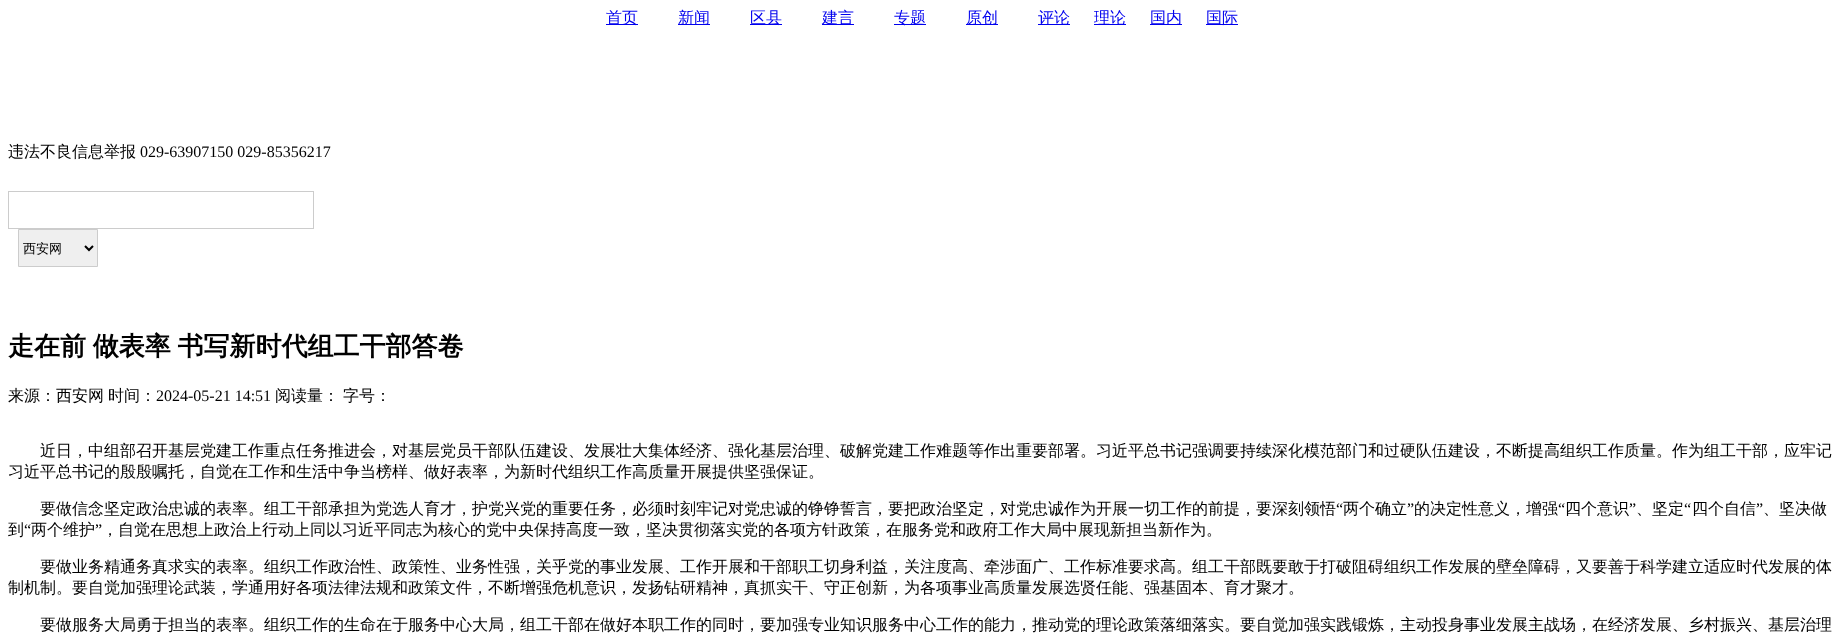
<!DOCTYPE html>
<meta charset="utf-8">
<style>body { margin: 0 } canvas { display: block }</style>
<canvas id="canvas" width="1847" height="635"></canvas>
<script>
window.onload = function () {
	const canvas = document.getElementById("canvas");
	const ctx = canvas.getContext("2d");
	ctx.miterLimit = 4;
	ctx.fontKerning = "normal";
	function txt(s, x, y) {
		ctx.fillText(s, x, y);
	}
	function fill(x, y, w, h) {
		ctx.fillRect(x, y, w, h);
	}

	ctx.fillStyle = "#FFFFFF";
	fill(0, 0, 1847, 635);
	ctx.fillStyle = "#0000EE";
	fill(606, 24, 32, 1);
	fill(678, 24, 32, 1);
	fill(750, 24, 32, 1);
	fill(822, 24, 32, 1);
	fill(894, 24, 32, 1);
	fill(966, 24, 32, 1);
	fill(1038, 24, 32, 1);
	fill(1094, 24, 32, 1);
	fill(1150, 24, 32, 1);
	fill(1206, 24, 32, 1);
	ctx.strokeStyle = "#CCCCCC";
	ctx.strokeRect(8.5, 191.5, 305, 37);
	ctx.fillStyle = "#EFEFEF";
	ctx.beginPath();
	ctx.rect(18.5, 229.5, 79, 37);
	ctx.fill();
	ctx.stroke();
	ctx.beginPath();
	ctx.moveTo(85, 246);
	ctx.lineTo(89, 250);
	ctx.lineTo(93, 246);
	ctx.strokeStyle = "#000000";
	ctx.lineWidth = 2;
	ctx.stroke();
	ctx.font = "500 16px WenQuanYi Zen Hei";
	ctx.fillStyle = "#0000EE";
	txt("首页", 606, 23);
	txt("新闻", 678, 23);
	txt("区县", 750, 23);
	txt("建言", 822, 23);
	txt("专题", 894, 23);
	txt("原创", 966, 23);
	txt("评论", 1038, 23);
	txt("理论", 1094, 23);
	txt("国内", 1150, 23);
	txt("国际", 1206, 23);
	ctx.fillStyle = "#000000";
	txt("违法不良信息举报", 8, 157);
	ctx.font = "16px Liberation Serif";
	txt("029-63907150 029-85356217", 140, 157);
	ctx.font = "500 13px WenQuanYi Zen Hei";
	txt("西安网", 23, 253);
	ctx.wordSpacing = "-1px";
	ctx.font = "bold 26px WenQuanYi Zen Hei";
	txt("走在前 做表率 书写新时代组工干部答卷", 8, 355);
	ctx.wordSpacing = "0px";
	ctx.font = "500 16px WenQuanYi Zen Hei";
	txt("来源：西安网", 8, 401);
	txt("时间：", 108, 401);
	ctx.font = "16px Liberation Serif";
	txt("2024-05-21 14:51", 156, 401);
	ctx.font = "500 16px WenQuanYi Zen Hei";
	txt("阅读量：", 275, 401);
	txt("字号：", 343, 401);
	txt("近日，中组部召开基层党建工作重点任务推进会，对基层党员干部队伍建设、发展壮大集体经济、强化基层治理、破解党建工作难题等作出重要部署。习近平总书记强调要持续深化模范部门和过硬队伍建设，不断提高组织工作质量。作为组工干部，应牢记", 40, 456);
	txt("习近平总书记的殷殷嘱托，自觉在工作和生活中争当榜样、做好表率，为新时代组织工作高质量开展提供坚强保证。", 8, 477);
	txt("要做信念坚定政治忠诚的表率。组工干部承担为党选人育才，护党兴党的重要任务，必须时刻牢记对党忠诚的铮铮誓言，要把政治坚定，对党忠诚作为开展一切工作的前提，要深刻领悟", 40, 514);
	ctx.font = "16px Liberation Serif";
	txt("“", 1336, 514);
	ctx.font = "500 16px WenQuanYi Zen Hei";
	txt("两个确立", 1343, 514);
	ctx.font = "16px Liberation Serif";
	txt("”", 1407, 514);
	ctx.font = "500 16px WenQuanYi Zen Hei";
	txt("的决定性意义，增强", 1414, 514);
	ctx.font = "16px Liberation Serif";
	txt("“", 1558, 514);
	ctx.font = "500 16px WenQuanYi Zen Hei";
	txt("四个意识", 1565, 514);
	ctx.font = "16px Liberation Serif";
	txt("”", 1629, 514);
	ctx.font = "500 16px WenQuanYi Zen Hei";
	txt("、坚定", 1636, 514);
	ctx.font = "16px Liberation Serif";
	txt("“", 1684, 514);
	ctx.font = "500 16px WenQuanYi Zen Hei";
	txt("四个自信", 1692, 514);
	ctx.font = "16px Liberation Serif";
	txt("”", 1756, 514);
	ctx.font = "500 16px WenQuanYi Zen Hei";
	txt("、坚决做", 1763, 514);
	txt("到", 8, 535);
	ctx.font = "16px Liberation Serif";
	txt("“", 24, 535);
	ctx.font = "500 16px WenQuanYi Zen Hei";
	txt("两个维护", 31, 535);
	ctx.font = "16px Liberation Serif";
	txt("”", 95, 535);
	ctx.font = "500 16px WenQuanYi Zen Hei";
	txt("，自觉在思想上政治上行动上同以习近平同志为核心的党中央保持高度一致，坚决贯彻落实党的各项方针政策，在服务党和政府工作大局中展现新担当新作为。", 102, 535);
	txt("要做业务精通务真求实的表率。组织工作政治性、政策性、业务性强，关乎党的事业发展、工作开展和干部职工切身利益，关注度高、牵涉面广、工作标准要求高。组工干部既要敢于打破阻碍组织工作发展的壁垒障碍，又要善于科学建立适应时代发展的体", 40, 572);
	txt("制机制。要自觉加强理论武装，学通用好各项法律法规和政策文件，不断增强危机意识，发扬钻研精神，真抓实干、守正创新，为各项事业高质量发展选贤任能、强基固本、育才聚才。", 8, 593);
	txt("要做服务大局勇于担当的表率。组织工作的生命在于服务中心大局，组工干部在做好本职工作的同时，要加强专业知识服务中心工作的能力，推动党的理论政策落细落实。要自觉加强实践锻炼，主动投身事业发展主战场，在经济发展、乡村振兴、基层治理", 40, 630);
};
</script>
